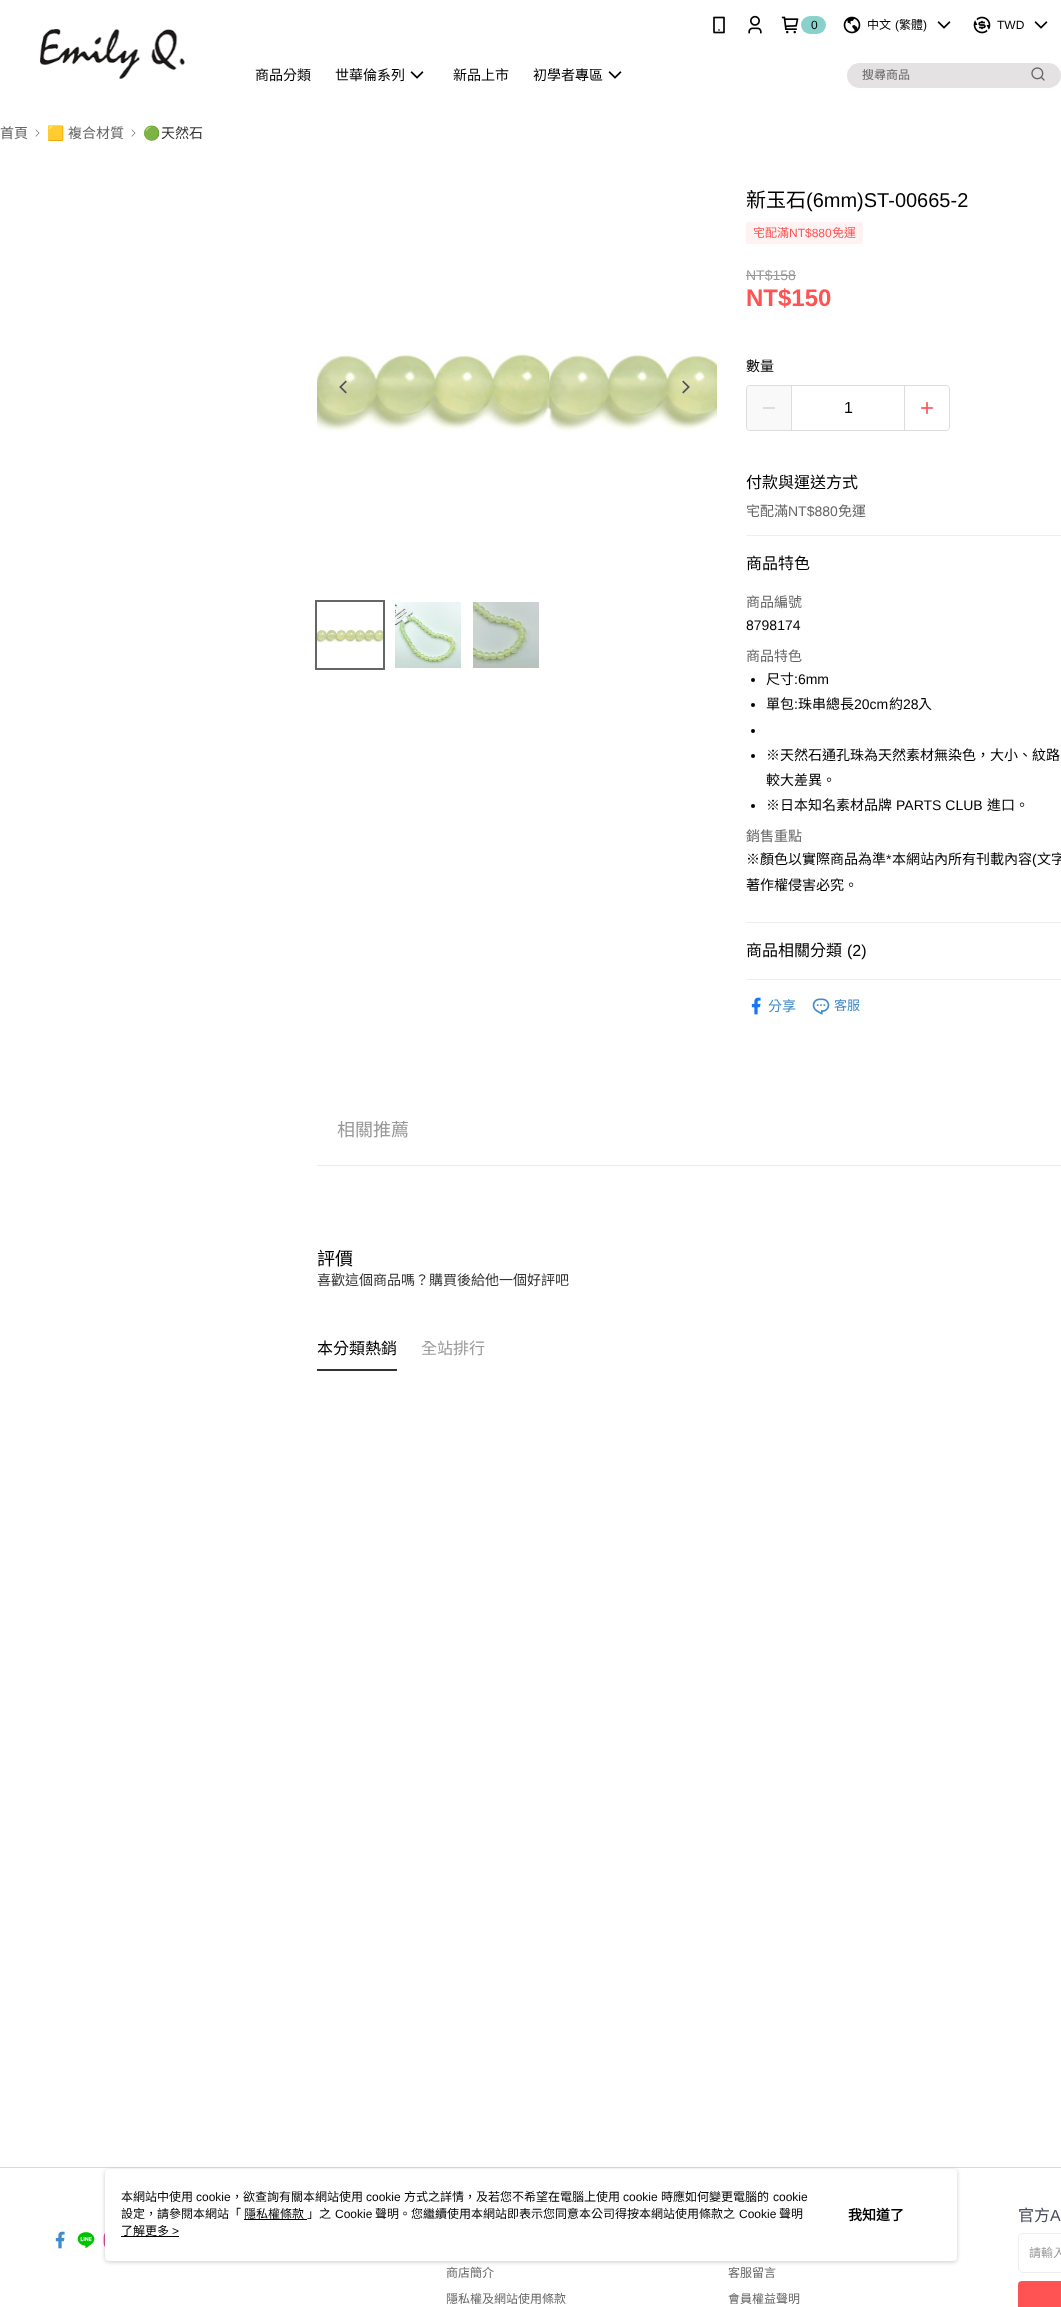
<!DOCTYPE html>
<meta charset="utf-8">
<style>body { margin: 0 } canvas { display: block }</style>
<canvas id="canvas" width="1061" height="2307"></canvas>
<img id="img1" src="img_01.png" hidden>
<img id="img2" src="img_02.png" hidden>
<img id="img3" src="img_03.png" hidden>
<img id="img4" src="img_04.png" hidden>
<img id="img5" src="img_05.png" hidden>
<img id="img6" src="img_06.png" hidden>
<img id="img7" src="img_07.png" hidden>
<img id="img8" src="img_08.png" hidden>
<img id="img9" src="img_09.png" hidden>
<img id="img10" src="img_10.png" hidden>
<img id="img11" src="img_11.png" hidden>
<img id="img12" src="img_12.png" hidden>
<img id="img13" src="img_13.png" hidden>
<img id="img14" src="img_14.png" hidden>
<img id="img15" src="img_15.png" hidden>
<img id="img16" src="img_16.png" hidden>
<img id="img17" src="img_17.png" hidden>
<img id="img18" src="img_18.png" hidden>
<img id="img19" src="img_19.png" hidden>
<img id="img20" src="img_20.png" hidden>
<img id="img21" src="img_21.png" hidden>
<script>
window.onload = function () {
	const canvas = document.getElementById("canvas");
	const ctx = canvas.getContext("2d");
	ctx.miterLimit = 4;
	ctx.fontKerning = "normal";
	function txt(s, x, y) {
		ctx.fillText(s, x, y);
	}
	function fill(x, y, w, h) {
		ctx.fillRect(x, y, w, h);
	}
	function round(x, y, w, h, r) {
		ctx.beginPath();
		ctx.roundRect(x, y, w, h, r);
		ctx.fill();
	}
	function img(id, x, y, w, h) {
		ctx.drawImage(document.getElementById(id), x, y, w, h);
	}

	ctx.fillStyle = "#FFFFFF";
	fill(0, 0, 1061, 2307);
	img("img1", 40, 29, 145, 50);
	img("img2", 713, 16, 12, 18);
	img("img3", 748, 15, 14, 19);
	img("img4", 781, 16, 18, 18);
	ctx.fillStyle = "#89D2CB";
	round(801, 16, 25, 18, 9);
	img("img5", 843, 16, 18, 18);
	img("img6", 937, 21, 14, 8);
	img("img7", 973, 16, 18, 18);
	img("img6", 1034, 21, 14, 8);
	img("img6", 410, 71, 14, 8);
	img("img6", 608, 71, 14, 8);
	ctx.fillStyle = "#E4E2E2";
	round(847, 63, 214, 25, 12.5);
	img("img8", 1031, 67, 14, 14);
	img("img9", 35, 129, 5, 8);
	img("img9", 131, 129, 5, 8);
	img("img10", 317, 351, 400, 82);
	img("img11", 339, 380, 8, 14);
	img("img12", 682, 380, 8, 14);
	img("img13", 317, 629, 66, 14);
	ctx.strokeStyle = "#666666";
	ctx.lineWidth = 2;
	ctx.strokeRect(316, 601, 68, 68);
	img("img14", 395, 602, 66, 66);
	img("img15", 473, 602, 66, 66);
	ctx.fillStyle = "#FFF2F2";
	ctx.beginPath();
	ctx.roundRect(746.5, 222.5, 116, 21, 1.5);
	ctx.fill();
	ctx.strokeStyle = "#FFF2F2";
	ctx.lineWidth = 1;
	ctx.stroke();
	ctx.fillStyle = "#999999";
	fill(746, 275, 50, 1);
	ctx.beginPath();
	ctx.roundRect(746.5, 385.5, 203, 45, 3.5);
	ctx.strokeStyle = "#DDDDDD";
	ctx.stroke();
	ctx.fillStyle = "rgba(241, 241, 241, 0.4)";
	fill(747, 386, 44, 44);
	ctx.fillStyle = "#DDDDDD";
	fill(763, 407, 12, 2);
	fill(904, 386, 1, 44);
	fill(791, 386, 1, 44);
	img("img16", 921, 402, 12, 12);
	ctx.fillStyle = "#ECEFF1";
	fill(746, 535, 315, 1);
	fill(746, 922, 315, 1);
	ctx.fillStyle = "#000000";
	ctx.beginPath();
	ctx.arc(753, 680, 2, 0, Math.PI * 2);
	ctx.fill();
	ctx.beginPath();
	ctx.arc(753, 705, 2, 0, Math.PI * 2);
	ctx.fill();
	ctx.beginPath();
	ctx.arc(753, 731, 2, 0, Math.PI * 2);
	ctx.fill();
	ctx.beginPath();
	ctx.arc(753, 756, 2, 0, Math.PI * 2);
	ctx.fill();
	ctx.beginPath();
	ctx.arc(753, 806, 2, 0, Math.PI * 2);
	ctx.fill();
	ctx.fillStyle = "#ECEFF1";
	fill(746, 979, 315, 1);
	img("img17", 751, 997, 10, 18);
	img("img18", 812, 998, 18, 17);
	ctx.fillStyle = "#ECECEC";
	fill(317, 1165, 744, 1);
	ctx.fillStyle = "#333333";
	fill(317, 1369, 80, 2);
	ctx.fillStyle = "#DADADA";
	fill(0, 2167, 1061, 1);
	img("img19", 55, 2231, 10, 18);
	img("img20", 77, 2232, 18, 16);
	img("img21", 103, 2233, 2, 14);
	ctx.beginPath();
	ctx.roundRect(1018.5, 2233.5, 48, 39, 4.5);
	ctx.strokeStyle = "#EDEDED";
	ctx.stroke();
	ctx.fillStyle = "#FF5353";
	round(1018, 2281, 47, 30, 4);
	ctx.fillStyle = "rgba(151, 151, 151, 0.5)";
	ctx.filter = "blur(2px)";
	ctx.beginPath();
	ctx.roundRect(105, 2170, 852, 92, 4);
	ctx.fill();
	ctx.filter = "none";
	ctx.fillStyle = "#FFFFFF";
	round(105, 2169, 852, 92, 4);
	ctx.fillStyle = "#000000";
	fill(244, 2219, 63, 1);
	fill(121, 2236, 58, 1);
	ctx.font = "12px Liberation Sans";
	txt("0", 811, 29);
	ctx.font = "12px Noto Sans CJK TC";
	txt("中文", 867, 29);
	ctx.font = "12px Liberation Sans";
	txt("(", 895, 29);
	ctx.font = "12px Noto Sans CJK TC";
	txt("繁體", 899, 29);
	ctx.font = "12px Liberation Sans";
	txt(")", 923, 29);
	txt("TWD", 997, 29);
	ctx.font = "14px Noto Sans CJK TC";
	txt("商品分類", 255, 80);
	txt("世華倫系列", 335, 80);
	txt("新品上市", 453, 80);
	txt("初學者專區", 533, 80);
	ctx.font = "12px Noto Sans CJK TC";
	ctx.fillStyle = "#666666";
	txt("搜尋商品", 862, 79);
	ctx.font = "14px Noto Sans CJK TC";
	txt("首頁", 0, 138);
	ctx.font = "14px Noto Color Emoji";
	txt("🟨", 47, 138);
	ctx.font = "14px Noto Sans CJK TC";
	txt("複合材質", 68, 138);
	ctx.font = "14px Noto Color Emoji";
	ctx.fillStyle = "#333333";
	txt("🟢", 143, 138);
	ctx.font = "14px Noto Sans CJK TC";
	txt("天然石", 161, 138);
	ctx.font = "20px Noto Sans CJK TC";
	ctx.fillStyle = "#000000";
	txt("新玉石", 746, 207);
	ctx.font = "20px Liberation Sans";
	txt("(6mm)ST-00665-2", 806, 207);
	ctx.font = "12px Noto Sans CJK TC";
	ctx.fillStyle = "#FF5353";
	txt("宅配滿", 753, 237);
	ctx.font = "12px Liberation Sans";
	txt("NT$880", 789, 237);
	ctx.font = "12px Noto Sans CJK TC";
	txt("免運", 832, 237);
	ctx.font = "14px Liberation Sans";
	ctx.fillStyle = "#999999";
	txt("NT$158", 746, 280);
	ctx.font = "bold 24px Liberation Sans";
	ctx.fillStyle = "#FF5353";
	txt("NT$150", 746, 306);
	ctx.font = "14px Noto Sans CJK TC";
	ctx.fillStyle = "#000000";
	txt("數量", 746, 371);
	ctx.font = "16px Liberation Sans";
	txt("1", 844, 413);
	ctx.font = "16px Noto Sans CJK TC";
	txt("付款與運送方式", 746, 488);
	ctx.font = "14px Noto Sans CJK TC";
	ctx.fillStyle = "#666666";
	txt("宅配滿", 746, 516);
	ctx.font = "14px Liberation Sans";
	txt("NT$880", 788, 516);
	ctx.font = "14px Noto Sans CJK TC";
	txt("免運", 838, 516);
	ctx.font = "16px Noto Sans CJK TC";
	ctx.fillStyle = "#000000";
	txt("商品特色", 746, 569);
	ctx.font = "14px Noto Sans CJK TC";
	ctx.fillStyle = "#666666";
	txt("商品編號", 746, 607);
	ctx.font = "14px Liberation Sans";
	ctx.fillStyle = "#000000";
	txt("8798174", 746, 630);
	ctx.font = "14px Noto Sans CJK TC";
	ctx.fillStyle = "#666666";
	txt("商品特色", 746, 661);
	ctx.fillStyle = "#000000";
	txt("尺寸", 766, 684);
	ctx.font = "14px Liberation Sans";
	txt(":6mm", 794, 684);
	ctx.font = "14px Noto Sans CJK TC";
	txt("單包", 766, 709);
	ctx.font = "14px Liberation Sans";
	txt(":", 794, 709);
	ctx.font = "14px Noto Sans CJK TC";
	txt("珠串總長", 798, 709);
	ctx.font = "14px Liberation Sans";
	txt("20cm", 854, 709);
	ctx.font = "14px Noto Sans CJK TC";
	txt("約", 889, 709);
	ctx.font = "14px Liberation Sans";
	txt("28", 903, 709);
	ctx.font = "14px Noto Sans CJK TC";
	txt("入", 918, 709);
	txt("※天然石通孔珠為天然素材無染色，大小、紋路", 766, 760);
	txt("較大差異。", 766, 785);
	txt("※日本知名素材品牌", 766, 810);
	ctx.font = "14px Liberation Sans";
	txt("PARTS CLUB", 896, 810);
	ctx.font = "14px Noto Sans CJK TC";
	txt("進口。", 987, 810);
	ctx.fillStyle = "#666666";
	txt("銷售重點", 746, 841);
	ctx.fillStyle = "#000000";
	txt("※顏色以實際商品為準", 746, 864);
	ctx.font = "14px Liberation Sans";
	txt("*", 886, 864);
	ctx.font = "14px Noto Sans CJK TC";
	txt("本網站內所有刊載內容", 892, 864);
	ctx.font = "14px Liberation Sans";
	txt("(", 1032, 864);
	ctx.font = "14px Noto Sans CJK TC";
	txt("文字", 1037, 864);
	txt("著作權侵害必究。", 746, 890);
	ctx.font = "16px Noto Sans CJK TC";
	txt("商品相關分類", 746, 956);
	ctx.font = "16px Liberation Sans";
	txt("(2)", 847, 956);
	ctx.font = "14px Noto Sans CJK TC";
	ctx.fillStyle = "#428BCA";
	txt("分享", 768, 1011);
	ctx.font = "13px Noto Sans CJK TC";
	txt("客服", 834, 1010);
	ctx.font = "18px Noto Sans CJK TC";
	ctx.fillStyle = "#999999";
	txt("相關推薦", 337, 1136);
	ctx.fillStyle = "#000000";
	txt("評價", 317, 1265);
	ctx.font = "14px Noto Sans CJK TC";
	ctx.fillStyle = "#333333";
	txt("喜歡這個商品嗎？購買後給他一個好評吧", 317, 1285);
	ctx.font = "16px Noto Sans CJK TC";
	ctx.fillStyle = "#000000";
	txt("本分類熱銷", 317, 1354);
	ctx.fillStyle = "#999999";
	txt("全站排行", 421, 1354);
	ctx.fillStyle = "#4A4E5C";
	txt("官方", 1018, 2221);
	ctx.font = "16px Liberation Sans";
	txt("A", 1050, 2221);
	ctx.font = "12px Noto Sans CJK TC";
	ctx.fillStyle = "#999999";
	txt("請輸入", 1029, 2257);
	ctx.fillStyle = "#666666";
	txt("商店簡介", 446, 2277);
	txt("隱私權及網站使用條款", 446, 2303);
	txt("客服留言", 728, 2277);
	txt("會員權益聲明", 728, 2303);
	ctx.fillStyle = "#000000";
	txt("本網站中使用", 121, 2201);
	ctx.font = "12px Liberation Sans";
	txt("cookie", 196, 2201);
	ctx.font = "12px Noto Sans CJK TC";
	txt("，欲查詢有關本網站使用", 231, 2201);
	ctx.font = "12px Liberation Sans";
	txt("cookie", 366, 2201);
	ctx.font = "12px Noto Sans CJK TC";
	txt("方式之詳情，及若您不希望在電腦上使用", 404, 2201);
	ctx.font = "12px Liberation Sans";
	txt("cookie", 623, 2201);
	ctx.font = "12px Noto Sans CJK TC";
	txt("時應如何變更電腦的", 661, 2201);
	ctx.font = "12px Liberation Sans";
	txt("cookie", 773, 2201);
	ctx.font = "12px Noto Sans CJK TC";
	txt("設定，請參閱本網站「", 121, 2218);
	txt("隱私權條款", 244, 2218);
	txt("」之", 307, 2218);
	ctx.font = "12px Liberation Sans";
	txt("Cookie", 335, 2218);
	ctx.font = "12px Noto Sans CJK TC";
	txt("聲明。您繼續使用本網站即表示您同意本公司得按本網站使用條款之", 375, 2218);
	ctx.font = "12px Liberation Sans";
	txt("Cookie", 739, 2218);
	ctx.font = "12px Noto Sans CJK TC";
	txt("聲明", 779, 2218);
	txt("了解更多", 121, 2235);
	ctx.font = "12px Liberation Sans";
	txt(">", 172, 2235);
	ctx.font = "bold 14px Noto Sans CJK TC";
	txt("我知道了", 848, 2220);
};
</script>
